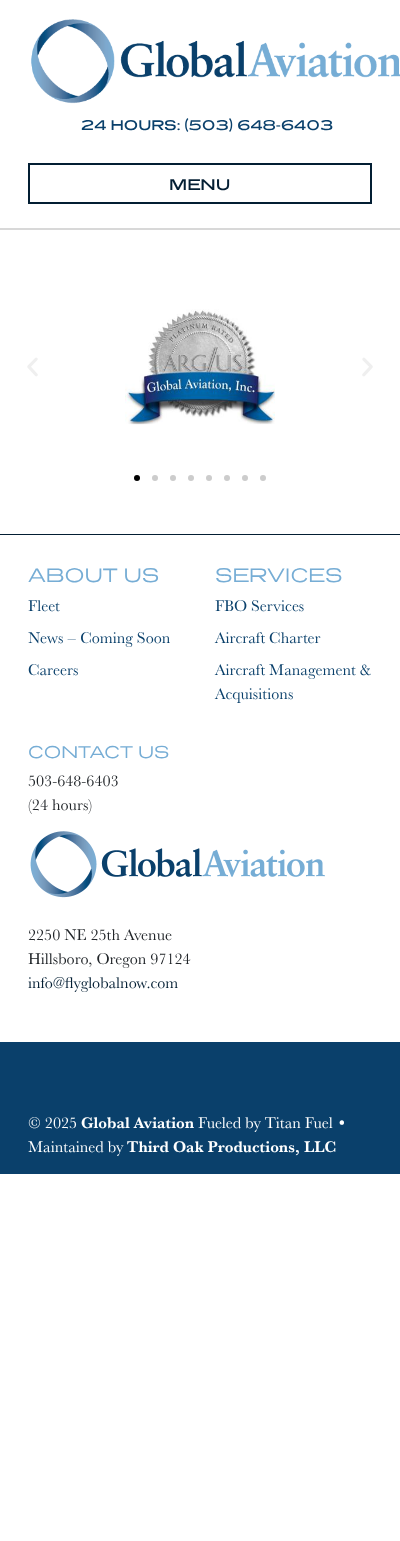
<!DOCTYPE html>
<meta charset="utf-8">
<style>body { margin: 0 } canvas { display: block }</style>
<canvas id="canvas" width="400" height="1541"></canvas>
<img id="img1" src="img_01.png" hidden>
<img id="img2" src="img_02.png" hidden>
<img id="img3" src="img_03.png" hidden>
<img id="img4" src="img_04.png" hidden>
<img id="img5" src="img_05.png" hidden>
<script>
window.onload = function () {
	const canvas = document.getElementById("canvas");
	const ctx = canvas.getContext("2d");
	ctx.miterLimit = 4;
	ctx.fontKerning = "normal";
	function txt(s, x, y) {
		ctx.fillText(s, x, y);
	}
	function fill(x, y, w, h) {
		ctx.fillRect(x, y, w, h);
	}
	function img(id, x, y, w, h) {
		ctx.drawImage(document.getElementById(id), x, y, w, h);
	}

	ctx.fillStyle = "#FFFFFF";
	fill(0, 0, 400, 1541);
	ctx.fillStyle = "#D8D8D8";
	fill(0, 228, 400, 2);
	img("img1", 31, 19, 369, 85);
	ctx.strokeStyle = "#031E33";
	ctx.lineWidth = 2;
	ctx.strokeRect(29, 164, 342, 39);
	img("img2", 27, 357, 11, 20);
	img("img3", 125, 309, 150, 116);
	img("img4", 362, 357, 11, 20);
	ctx.fillStyle = "#000000";
	ctx.beginPath();
	ctx.arc(137, 478, 3, 0, Math.PI * 2);
	ctx.fill();
	ctx.fillStyle = "#CCCCCC";
	ctx.beginPath();
	ctx.arc(155, 478, 3, 0, Math.PI * 2);
	ctx.fill();
	ctx.beginPath();
	ctx.arc(173, 478, 3, 0, Math.PI * 2);
	ctx.fill();
	ctx.beginPath();
	ctx.arc(191, 478, 3, 0, Math.PI * 2);
	ctx.fill();
	ctx.beginPath();
	ctx.arc(209, 478, 3, 0, Math.PI * 2);
	ctx.fill();
	ctx.beginPath();
	ctx.arc(227, 478, 3, 0, Math.PI * 2);
	ctx.fill();
	ctx.beginPath();
	ctx.arc(245, 478, 3, 0, Math.PI * 2);
	ctx.fill();
	ctx.beginPath();
	ctx.arc(263, 478, 3, 0, Math.PI * 2);
	ctx.fill();
	ctx.fillStyle = "#031E33";
	fill(0, 534, 400, 1);
	img("img5", 30, 831, 295, 67);
	ctx.fillStyle = "#0A406B";
	fill(0, 1042, 400, 132);
	ctx.font = "14.4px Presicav";
	txt("24 HOURS: (503) 648-6403", 81, 130);
	ctx.font = "16px Presicav";
	ctx.fillStyle = "#031E33";
	txt("MENU", 169, 190);
	ctx.font = "20px 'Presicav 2'";
	ctx.fillStyle = "#76ADD5";
	txt("ABOUT US", 28, 582);
	ctx.font = "16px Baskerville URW";
	ctx.fillStyle = "#0A406B";
	txt("Fleet", 28, 611);
	txt("News – Coming Soon", 28, 643);
	txt("Careers", 28, 675);
	ctx.font = "20px 'Presicav 2'";
	ctx.fillStyle = "#76ADD5";
	txt("SERVICES", 215, 582);
	ctx.font = "16px Baskerville URW";
	ctx.fillStyle = "#0A406B";
	txt("FBO Services", 215, 611);
	txt("Aircraft Charter", 215, 643);
	txt("Aircraft Management &", 215, 675);
	txt("Acquisitions", 215, 699);
	ctx.font = "17.5px 'Presicav 2'";
	ctx.fillStyle = "#76ADD5";
	txt("CONTACT US", 28, 758);
	ctx.font = "16px Baskerville URW";
	ctx.fillStyle = "#212529";
	txt("503-648-6403", 28, 786);
	txt("(24 hours)", 28, 810);
	txt("2250 NE 25th Avenue", 28, 940);
	txt("Hillsboro, Oregon 97124", 28, 964);
	ctx.fillStyle = "#031E33";
	txt("info@flyglobalnow.com", 28, 988);
	ctx.fillStyle = "#FFFFFF";
	txt("© 2025", 28, 1128);
	ctx.font = "bold 16px Baskerville URW";
	txt("Global Aviation", 81, 1128);
	ctx.font = "16px Baskerville URW";
	txt("Fueled by Titan Fuel •", 198, 1128);
	txt("Maintained by", 28, 1152);
	ctx.font = "bold 16px Baskerville URW";
	txt("Third Oak Productions, LLC", 127, 1152);
};
</script>
